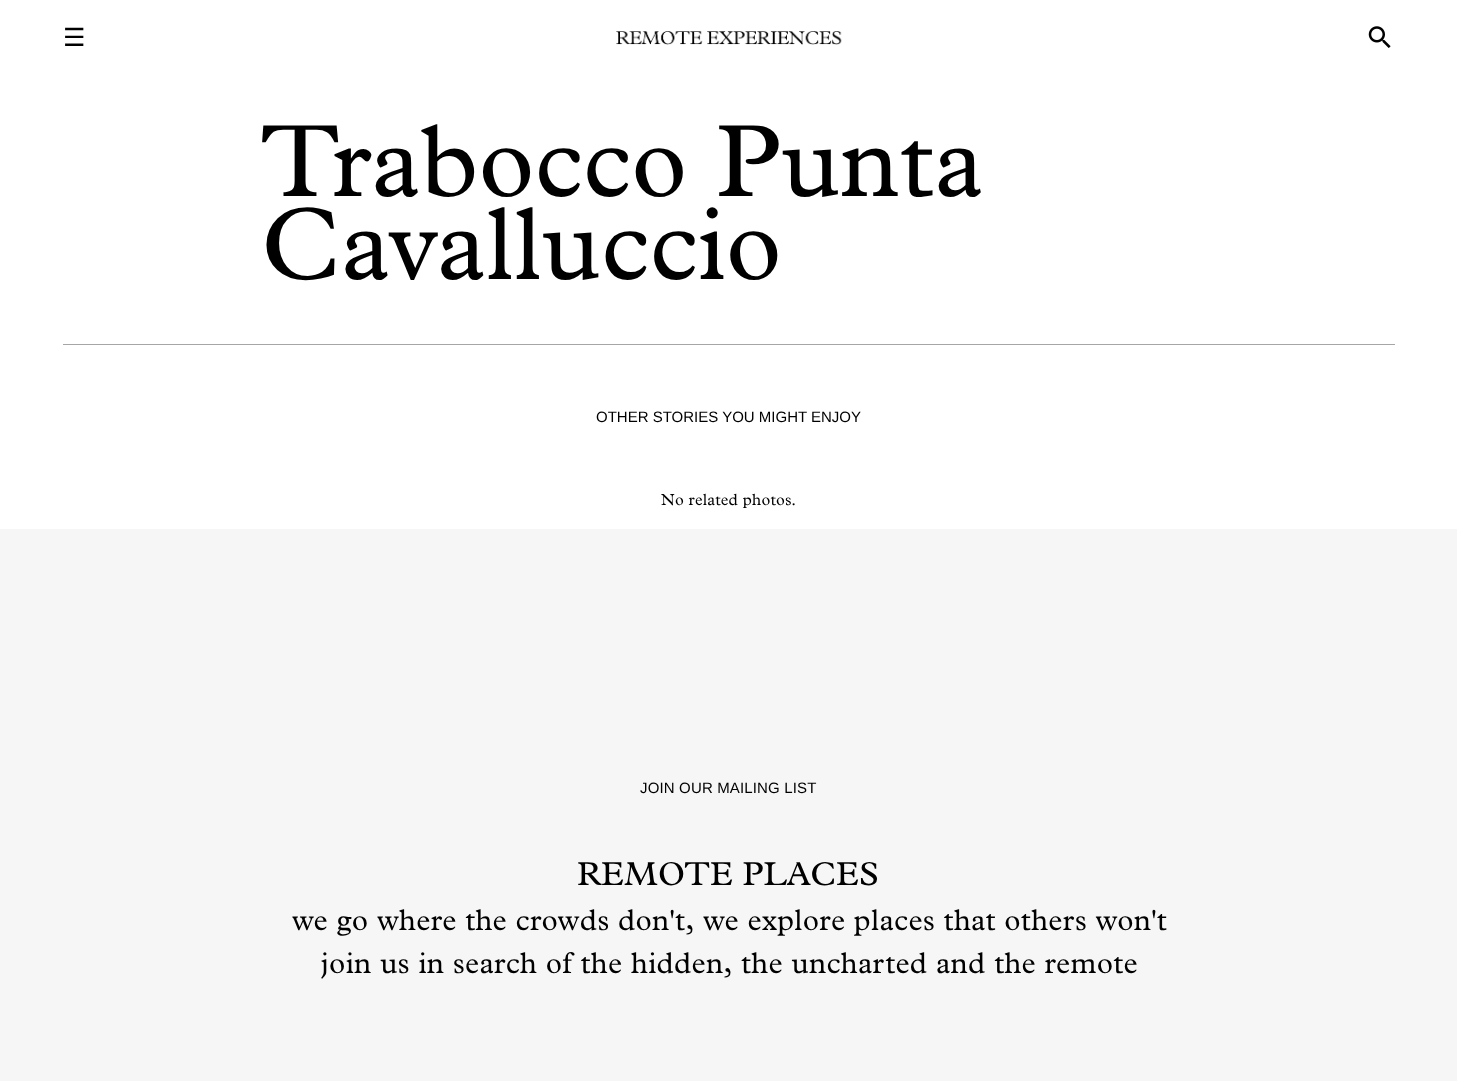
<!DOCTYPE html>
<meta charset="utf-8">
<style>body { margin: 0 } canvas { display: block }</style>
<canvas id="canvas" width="1457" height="1081"></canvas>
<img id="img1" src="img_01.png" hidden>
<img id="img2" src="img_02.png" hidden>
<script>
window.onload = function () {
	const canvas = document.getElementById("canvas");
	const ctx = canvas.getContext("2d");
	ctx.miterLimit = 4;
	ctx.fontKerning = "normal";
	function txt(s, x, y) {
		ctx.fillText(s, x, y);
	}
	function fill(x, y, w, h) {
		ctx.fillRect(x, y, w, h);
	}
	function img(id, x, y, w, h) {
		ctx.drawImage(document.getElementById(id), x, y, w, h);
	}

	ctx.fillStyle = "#FFFFFF";
	fill(0, 0, 1457, 1081);
	img("img1", 616, 31, 226, 14);
	img("img2", 1368, 26, 23, 22);
	ctx.fillStyle = "#A6A6A6";
	fill(63, 344, 1332, 1);
	ctx.fillStyle = "#F6F6F6";
	fill(0, 529, 1457, 552);
	ctx.font = "25px DejaVu Sans";
	ctx.fillStyle = "#000000";
	txt("☰", 63, 46);
	ctx.font = "103.25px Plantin";
	txt("Trabocco Punta", 261, 196);
	txt("Cavalluccio", 260, 279);
	ctx.font = "15px Liberation Sans";
	txt("OTHER STORIES YOU MIGHT ENJOY", 596, 422);
	ctx.letterSpacing = "0.2px";
	ctx.font = "16.25px Plantin";
	txt("No related photos.", 661, 505);
	ctx.letterSpacing = "0.15px";
	ctx.font = "15px Liberation Sans";
	txt("JOIN OUR MAILING LIST", 640, 793);
	ctx.letterSpacing = "0.3px";
	ctx.font = "33.25px Plantin";
	txt("REMOTE PLACES", 577, 885);
	ctx.font = "30px Plantin";
	txt("we go where the crowds don't, we explore places that others won't", 292, 930);
	txt("join us in search of the hidden, the uncharted and the remote", 321, 973);
};
</script>
